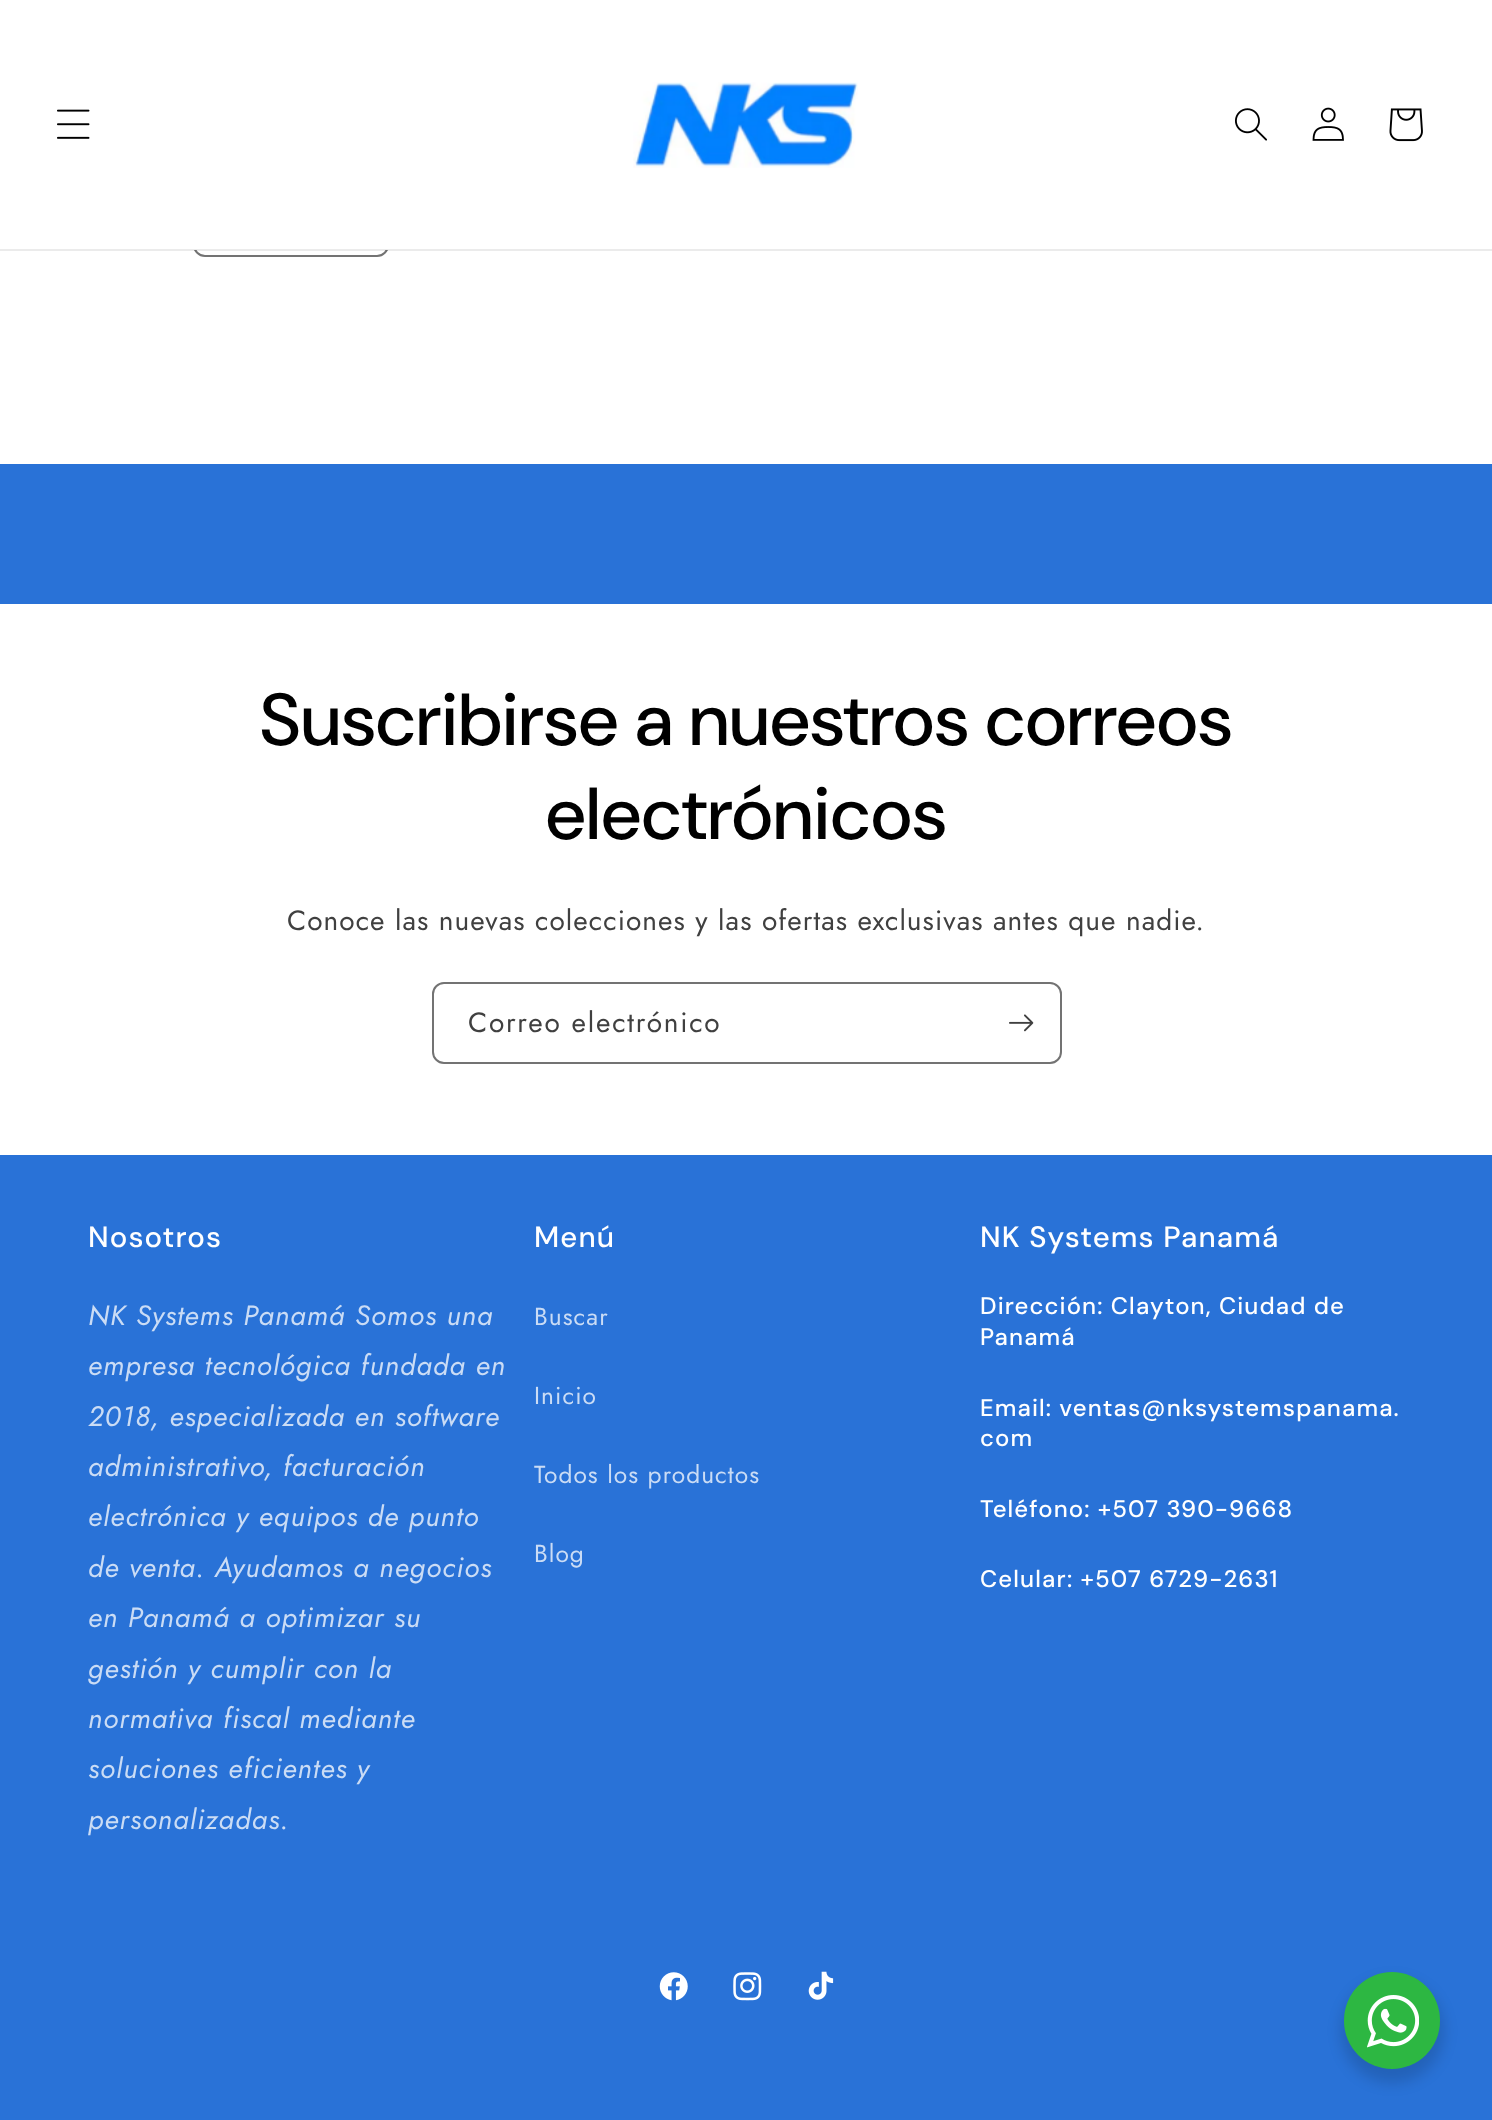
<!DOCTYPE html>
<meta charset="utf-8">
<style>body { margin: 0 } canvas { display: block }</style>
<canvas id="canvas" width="1492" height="2120"></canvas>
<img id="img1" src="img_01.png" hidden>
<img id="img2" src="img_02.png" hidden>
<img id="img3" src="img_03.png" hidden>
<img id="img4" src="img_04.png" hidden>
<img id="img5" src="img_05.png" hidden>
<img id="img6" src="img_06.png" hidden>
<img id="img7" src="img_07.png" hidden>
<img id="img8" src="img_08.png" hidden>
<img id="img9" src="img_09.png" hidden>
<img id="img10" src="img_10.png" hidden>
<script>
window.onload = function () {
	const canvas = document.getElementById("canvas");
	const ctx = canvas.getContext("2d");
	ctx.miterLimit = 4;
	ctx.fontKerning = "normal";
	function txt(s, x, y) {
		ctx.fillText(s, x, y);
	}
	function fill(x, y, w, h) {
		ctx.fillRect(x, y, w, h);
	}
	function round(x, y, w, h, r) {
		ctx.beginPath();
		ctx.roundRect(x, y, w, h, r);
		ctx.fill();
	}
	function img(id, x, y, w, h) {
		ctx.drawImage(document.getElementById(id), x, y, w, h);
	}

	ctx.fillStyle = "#FFFFFF";
	fill(0, 0, 1492, 2120);
	ctx.beginPath();
	ctx.roundRect(194, 194, 194, 62, 11);
	ctx.strokeStyle = "#737373";
	ctx.lineWidth = 2;
	ctx.stroke();
	fill(193, 193, 196, 57);
	ctx.fillStyle = "rgba(0, 0, 0, 0.08)";
	fill(0, 249, 1492, 2);
	img("img1", 57, 109, 33, 30);
	img("img2", 633, 82, 225, 86);
	img("img3", 1235, 108, 32, 33);
	img("img4", 1312, 107, 32, 34);
	img("img5", 1389, 108, 34, 34);
	ctx.fillStyle = "#2972D7";
	fill(0, 464, 1492, 140);
	ctx.beginPath();
	ctx.roundRect(433, 983, 628, 80, 11);
	ctx.stroke();
	img("img6", 1009, 1014, 25, 18);
	fill(0, 1155, 1492, 965);
	img("img7", 659, 1972, 29, 29);
	img("img8", 733, 1972, 29, 29);
	img("img9", 808, 1971, 26, 29);
	ctx.fillStyle = "rgba(0, 0, 0, 0.14)";
	ctx.filter = "blur(7px)";
	ctx.beginPath();
	ctx.roundRect(1341, 1979, 103, 104, 51.5);
	ctx.fill();
	ctx.filter = "none";
	ctx.fillStyle = "#2DB742";
	round(1344, 1972, 96, 97, 48);
	img("img10", 1367, 1995, 52, 53);
	ctx.letterSpacing = "1.1px";
	ctx.font = "500 73.5px DM Sans";
	ctx.fillStyle = "#000000";
	txt("Suscribirse a nuestros correos", 260, 745);
	txt("electrónicos", 546, 839);
	ctx.letterSpacing = "1.05px";
	ctx.font = "28px Jost";
	ctx.fillStyle = "#404040";
	txt("Conoce las nuevas colecciones y las ofertas exclusivas antes que nadie.", 287, 930);
	ctx.letterSpacing = "1.75px";
	txt("Correo electrónico", 468, 1032);
	ctx.letterSpacing = "1.1px";
	ctx.font = "500 29.4px 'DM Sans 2'";
	ctx.fillStyle = "#FFFFFF";
	txt("Nosotros", 88, 1247);
	ctx.letterSpacing = "1.05px";
	ctx.font = "italic 28px Jost";
	ctx.fillStyle = "#CADCF5";
	txt("NK Systems Panamá Somos una", 88, 1325);
	txt("empresa tecnológica fundada en", 88, 1375);
	txt("2018, especializada en software", 88, 1426);
	txt("administrativo, facturación", 88, 1476);
	txt("electrónica y equipos de punto", 88, 1526);
	txt("de venta. Ayudamos a negocios", 88, 1577);
	txt("en Panamá a optimizar su", 88, 1627);
	txt("gestión y cumplir con la", 88, 1678);
	txt("normativa fiscal mediante", 88, 1728);
	txt("soluciones eficientes y", 88, 1778);
	txt("personalizadas.", 88, 1829);
	ctx.letterSpacing = "1.1px";
	ctx.font = "500 29.4px 'DM Sans 2'";
	ctx.fillStyle = "#FFFFFF";
	txt("Menú", 534, 1247);
	ctx.letterSpacing = "1.05px";
	ctx.font = "24.5px Jost";
	ctx.fillStyle = "#CADCF5";
	txt("Buscar", 534, 1325);
	txt("Inicio", 534, 1404);
	txt("Todos los productos", 534, 1483);
	txt("Blog", 534, 1562);
	ctx.letterSpacing = "1.1px";
	ctx.font = "500 29.4px 'DM Sans 2'";
	ctx.fillStyle = "#FFFFFF";
	txt("NK Systems Panamá", 980, 1247);
	ctx.font = "500 23.9px 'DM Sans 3'";
	txt("Dirección: Clayton, Ciudad de", 980, 1314);
	txt("Panamá", 980, 1345);
	txt("Email: ventas@nksystemspanama.", 980, 1416);
	txt("com", 980, 1446);
	txt("Teléfono: +507 390-9668", 980, 1517);
	txt("Celular: +507 6729-2631", 980, 1587);
};
</script>
